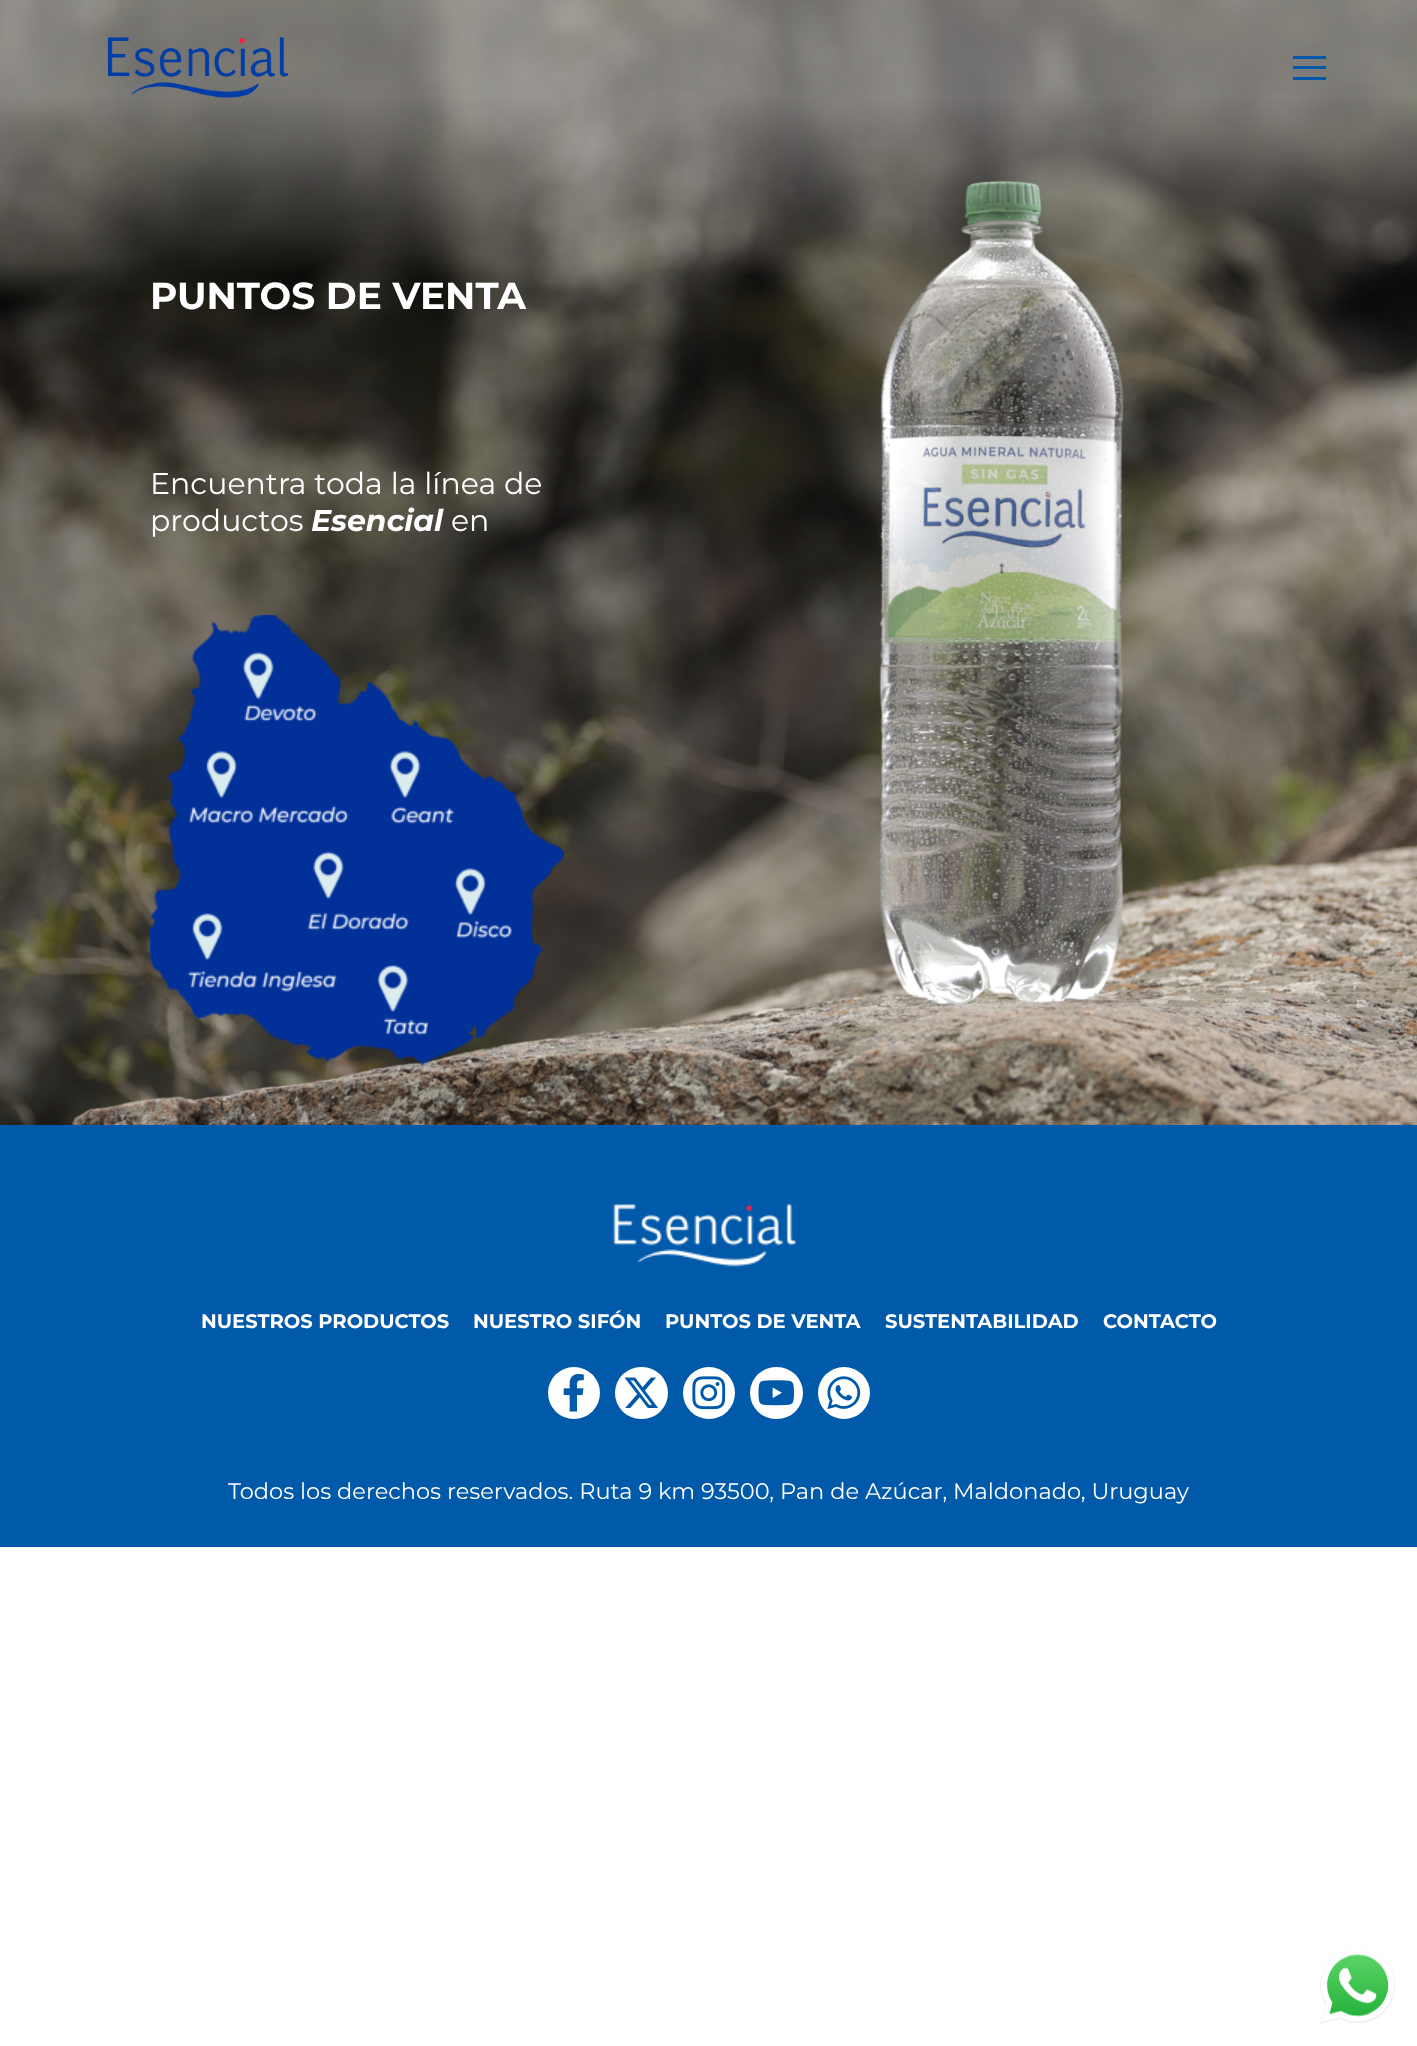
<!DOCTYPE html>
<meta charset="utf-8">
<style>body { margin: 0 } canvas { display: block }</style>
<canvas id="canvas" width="1417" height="2046"></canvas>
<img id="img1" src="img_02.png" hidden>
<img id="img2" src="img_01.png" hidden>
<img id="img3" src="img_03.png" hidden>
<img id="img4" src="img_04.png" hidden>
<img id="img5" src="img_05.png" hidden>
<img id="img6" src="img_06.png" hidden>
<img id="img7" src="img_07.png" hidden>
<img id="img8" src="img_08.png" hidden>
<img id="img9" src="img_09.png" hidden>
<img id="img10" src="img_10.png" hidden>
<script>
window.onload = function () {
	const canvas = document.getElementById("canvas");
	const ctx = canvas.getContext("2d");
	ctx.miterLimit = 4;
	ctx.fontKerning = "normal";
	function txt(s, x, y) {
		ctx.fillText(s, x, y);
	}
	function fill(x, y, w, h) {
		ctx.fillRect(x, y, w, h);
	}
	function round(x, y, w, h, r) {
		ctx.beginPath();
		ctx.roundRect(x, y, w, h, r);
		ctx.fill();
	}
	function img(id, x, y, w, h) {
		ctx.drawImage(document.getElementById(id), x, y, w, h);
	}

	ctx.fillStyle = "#FFFFFF";
	fill(0, 0, 1417, 2046);
	img("img1", 0, 0, 1417, 1125);
	img("img2", 108, 37, 180, 61);
	ctx.fillStyle = "#015AA9";
	fill(1293, 66, 33, 3);
	fill(1293, 56, 33, 3);
	fill(1293, 77, 33, 3);
	img("img3", 150, 615, 414, 450);
	fill(0, 1125, 1417, 422);
	img("img4", 613, 1204, 184, 63);
	ctx.fillStyle = "#FFFFFF";
	ctx.beginPath();
	ctx.arc(574, 1393, 26, 0, Math.PI * 2);
	ctx.fill();
	img("img5", 563, 1374, 21, 38);
	round(615, 1367, 53, 52, 26);
	img("img6", 624, 1377, 35, 31);
	ctx.beginPath();
	ctx.arc(709, 1393, 26, 0, Math.PI * 2);
	ctx.fill();
	img("img7", 692, 1376, 34, 34);
	round(750, 1367, 53, 52, 26);
	img("img8", 758, 1380, 36, 26);
	ctx.beginPath();
	ctx.arc(844, 1393, 26, 0, Math.PI * 2);
	ctx.fill();
	img("img9", 827, 1376, 34, 34);
	img("img10", 1320, 1948, 75, 76);
	ctx.font = "bold 37.5px Montserrat";
	txt("PUNTOS DE VENTA", 150, 309);
	ctx.font = "30px Montserrat";
	txt("Encuentra toda la línea de", 150, 494);
	txt("productos", 150, 531);
	ctx.font = "italic bold 30px Montserrat";
	txt("Esencial", 311, 531);
	ctx.font = "30px Montserrat";
	txt("en", 451, 531);
	ctx.font = "bold 19.5px Montserrat";
	txt("NUESTROS PRODUCTOS", 201, 1328);
	txt("NUESTRO SIFÓN", 473, 1328);
	txt("PUNTOS DE VENTA", 665, 1328);
	txt("SUSTENTABILIDAD", 885, 1328);
	txt("CONTACTO", 1103, 1328);
	ctx.font = "22.5px Montserrat";
	txt("Todos los derechos reservados. Ruta 9 km 93500, Pan de Azúcar, Maldonado, Uruguay", 228, 1499);
};
</script>
